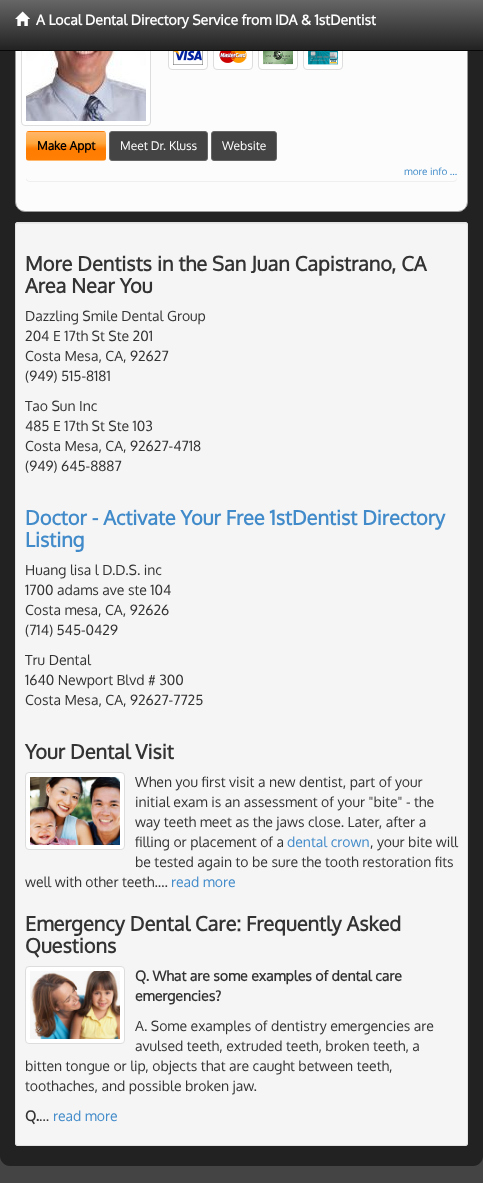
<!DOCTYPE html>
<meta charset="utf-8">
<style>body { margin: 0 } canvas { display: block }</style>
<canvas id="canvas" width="483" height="1183"></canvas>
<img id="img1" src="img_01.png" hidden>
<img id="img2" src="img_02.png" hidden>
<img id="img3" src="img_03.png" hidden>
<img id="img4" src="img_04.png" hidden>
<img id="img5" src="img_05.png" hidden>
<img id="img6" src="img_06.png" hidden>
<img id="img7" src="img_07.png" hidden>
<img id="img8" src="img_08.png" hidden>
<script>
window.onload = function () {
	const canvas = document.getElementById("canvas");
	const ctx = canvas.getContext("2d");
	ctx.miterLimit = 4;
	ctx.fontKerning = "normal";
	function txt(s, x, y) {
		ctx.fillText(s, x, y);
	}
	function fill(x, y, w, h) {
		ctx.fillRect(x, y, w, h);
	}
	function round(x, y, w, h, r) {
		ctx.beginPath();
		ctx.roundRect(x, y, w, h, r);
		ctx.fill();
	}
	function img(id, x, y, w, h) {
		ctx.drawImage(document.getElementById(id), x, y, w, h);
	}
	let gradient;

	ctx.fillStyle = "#444444";
	fill(0, 0, 483, 1183);
	ctx.fillStyle = "#222222";
	ctx.beginPath();
	ctx.moveTo(0, -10);
	ctx.lineTo(483, -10);
	ctx.lineTo(483, 1156);
	ctx.bezierCurveTo(483, 1161.5, 478.5, 1166, 473, 1166);
	ctx.lineTo(10, 1166);
	ctx.bezierCurveTo(4.5, 1166, 0, 1161.5, 0, 1156);
	ctx.closePath();
	ctx.fill();
	ctx.fillStyle = "#FBFCFB";
	ctx.beginPath();
	ctx.roundRect(15.5, -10.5, 452, 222, 9.5);
	ctx.fill();
	ctx.strokeStyle = "#999999";
	ctx.stroke();
	ctx.fillStyle = "#FFFFFF";
	ctx.beginPath();
	ctx.roundRect(21.5, -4.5, 129, 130, 3.5);
	ctx.fill();
	ctx.strokeStyle = "#DDDDDD";
	ctx.stroke();
	ctx.beginPath();
	ctx.roundRect(168.5, 40.5, 39, 29, 3.5);
	ctx.fill();
	ctx.stroke();
	ctx.beginPath();
	ctx.roundRect(213.5, 40.5, 39, 29, 3.5);
	ctx.fill();
	ctx.stroke();
	ctx.beginPath();
	ctx.roundRect(258.5, 40.5, 39, 29, 3.5);
	ctx.fill();
	ctx.stroke();
	ctx.beginPath();
	ctx.roundRect(303.5, 40.5, 39, 29, 3.5);
	ctx.fill();
	ctx.stroke();
	gradient = ctx.createLinearGradient(242, 0, 242, 50);
	gradient.addColorStop(0, "#666666");
	gradient.addColorStop(1, "#222222");
	ctx.fillStyle = gradient;
	fill(0, 0, 483, 50);
	ctx.fillStyle = "#080808";
	fill(0, 50, 483, 1);
	img("img1", 15, 11, 15, 15);
	img("img2", 26, 51, 120, 70);
	img("img3", 173, 51, 30, 14);
	img("img4", 219, 51, 28, 12);
	img("img5", 263, 51, 30, 14);
	img("img6", 308, 51, 30, 14);
	ctx.save();
	ctx.beginPath();
	ctx.roundRect(26, 131, 80, 30, 3);
	ctx.clip();
	gradient = ctx.createLinearGradient(66, 104, 66, 132);
	gradient.addColorStop(0, "#FFB76B");
	gradient.addColorStop(0.4, "#FFA73D");
	gradient.addColorStop(0.6, "#FF7C00");
	gradient.addColorStop(1, "#FF7F04");
	ctx.fillStyle = gradient;
	fill(26, 131, 80, 1);
	gradient = ctx.createLinearGradient(66, 132, 66, 160);
	gradient.addColorStop(0, "#FFB76B");
	gradient.addColorStop(0.4, "#FFA73D");
	gradient.addColorStop(0.6, "#FF7C00");
	gradient.addColorStop(1, "#FF7F04");
	ctx.fillStyle = gradient;
	fill(26, 132, 80, 28);
	gradient = ctx.createLinearGradient(66, 160, 66, 188);
	gradient.addColorStop(0, "#FFB76B");
	gradient.addColorStop(0.4, "#FFA73D");
	gradient.addColorStop(0.6, "#FF7C00");
	gradient.addColorStop(1, "#FF7F04");
	ctx.fillStyle = gradient;
	fill(26, 160, 80, 1);
	ctx.restore();
	ctx.fillStyle = "#444444";
	ctx.beginPath();
	ctx.roundRect(109.5, 131.5, 98, 29, 2.5);
	ctx.fill();
	ctx.strokeStyle = "#666666";
	ctx.stroke();
	ctx.beginPath();
	ctx.roundRect(211.5, 131.5, 65, 29, 2.5);
	ctx.fill();
	ctx.stroke();
	ctx.save();
	ctx.beginPath();
	ctx.moveTo(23, 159);
	ctx.lineTo(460, 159);
	ctx.lineTo(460, 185);
	ctx.lineTo(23, 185);
	ctx.closePath();
	ctx.moveTo(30, 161);
	ctx.lineTo(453, 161);
	ctx.bezierCurveTo(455, 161, 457, 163, 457, 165);
	ctx.lineTo(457, 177);
	ctx.bezierCurveTo(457, 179, 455, 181, 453, 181);
	ctx.lineTo(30, 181);
	ctx.bezierCurveTo(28, 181, 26, 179, 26, 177);
	ctx.lineTo(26, 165);
	ctx.bezierCurveTo(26, 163, 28, 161, 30, 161);
	ctx.closePath();
	ctx.clip("evenodd");
	ctx.fillStyle = "rgba(0, 0, 0, 0.05)";
	ctx.filter = "blur(0.5px)";
	ctx.beginPath();
	ctx.roundRect(26, 162, 431, 20, 4);
	ctx.fill();
	ctx.filter = "none";
	ctx.restore();
	ctx.fillStyle = "#F5F5F5";
	round(15, 222, 453, 924, 3);
	ctx.fillStyle = "#E9E9E9";
	ctx.beginPath();
	ctx.moveTo(18, 224);
	ctx.lineTo(465, 224);
	ctx.bezierCurveTo(466, 224, 467, 225, 467, 226);
	ctx.bezierCurveTo(467, 225, 467, 223, 465, 223);
	ctx.lineTo(18, 223);
	ctx.bezierCurveTo(16, 223, 16, 225, 16, 226);
	ctx.bezierCurveTo(16, 225, 17, 224, 18, 224);
	ctx.closePath();
	ctx.fill();
	ctx.beginPath();
	ctx.roundRect(15.5, 222.5, 452, 923, 2.5);
	ctx.strokeStyle = "#E3E3E3";
	ctx.stroke();
	ctx.fillStyle = "#FFFFFF";
	ctx.beginPath();
	ctx.roundRect(25.5, 772.5, 99, 77, 3.5);
	ctx.fill();
	ctx.strokeStyle = "#DDDDDD";
	ctx.stroke();
	img("img7", 30, 777, 90, 68);
	ctx.beginPath();
	ctx.roundRect(25.5, 966.5, 99, 77, 3.5);
	ctx.fill();
	ctx.stroke();
	img("img8", 30, 971, 90, 68);
	ctx.font = "bold 14px Oxygen";
	txt("A Local Dental Directory Service from IDA & 1stDentist", 36, 25);
	ctx.font = "bold 12px Oxygen";
	ctx.fillStyle = "#000000";
	txt("Make Appt", 37, 150);
	ctx.font = "12px Oxygen";
	ctx.fillStyle = "#FFFFFF";
	txt("Meet Dr. Kluss", 120, 150);
	txt("Website", 222, 150);
	ctx.font = "10px Oxygen";
	ctx.fillStyle = "#428BCA";
	txt("more info ...", 404, 175);
	ctx.font = "bold 20px Oxygen";
	ctx.fillStyle = "#333333";
	txt("More Dentists in the San Juan Capistrano, CA", 25, 271);
	txt("Area Near You", 25, 293);
	ctx.font = "14px Oxygen";
	txt("Dazzling Smile Dental Group", 25, 321);
	txt("204 E 17th St Ste 201", 25, 341);
	txt("Costa Mesa, CA, 92627", 25, 361);
	txt("(949) 515-8181", 25, 381);
	txt("Tao Sun Inc", 25, 411);
	txt("485 E 17th St Ste 103", 25, 431);
	txt("Costa Mesa, CA, 92627-4718", 25, 451);
	txt("(949) 645-8887", 25, 471);
	ctx.font = "bold 20px Oxygen";
	ctx.fillStyle = "#428BCA";
	txt("Doctor - Activate Your Free 1stDentist Directory", 25, 525);
	txt("Listing", 25, 547);
	ctx.font = "14px Oxygen";
	ctx.fillStyle = "#333333";
	txt("Huang lisa l D.D.S. inc", 25, 575);
	txt("1700 adams ave ste 104", 25, 595);
	txt("Costa mesa, CA, 92626", 25, 615);
	txt("(714) 545-0429", 25, 635);
	txt("Tru Dental", 25, 665);
	txt("1640 Newport Blvd # 300", 25, 685);
	txt("Costa Mesa, CA, 92627-7725", 25, 705);
	ctx.font = "bold 20px Oxygen";
	txt("Your Dental Visit", 25, 759);
	ctx.font = "14px Oxygen";
	txt("When you first visit a new dentist, part of your", 135, 787);
	txt("initial exam is an assessment of your \"bite\" - the", 135, 807);
	txt("way teeth meet as the jaws close. Later, after a", 135, 827);
	txt("filling or placement of a", 135, 847);
	ctx.fillStyle = "#428BCA";
	txt("dental crown", 287, 847);
	ctx.fillStyle = "#333333";
	txt(", your bite will", 370, 847);
	txt("be tested again to be sure the tooth restoration fits", 135, 867);
	txt("well with other teeth.…", 25, 887);
	ctx.fillStyle = "#428BCA";
	txt("read more", 171, 887);
	ctx.font = "bold 20px Oxygen";
	ctx.fillStyle = "#333333";
	txt("Emergency Dental Care: Frequently Asked", 25, 931);
	txt("Questions", 25, 953);
	ctx.font = "bold 14px Oxygen";
	txt("Q. What are some examples of dental care", 135, 981);
	txt("emergencies?", 135, 1001);
	ctx.font = "14px Oxygen";
	txt("A. Some examples of dentistry emergencies are", 135, 1031);
	txt("avulsed teeth, extruded teeth, broken teeth, a", 135, 1051);
	txt("bitten tongue or lip, objects that are caught between teeth,", 25, 1071);
	txt("toothaches, and possible broken jaw.", 25, 1091);
	ctx.font = "bold 14px Oxygen";
	txt("Q.", 25, 1121);
	ctx.font = "14px Oxygen";
	txt("…", 39, 1121);
	ctx.fillStyle = "#428BCA";
	txt("read more", 53, 1121);
};
</script>
